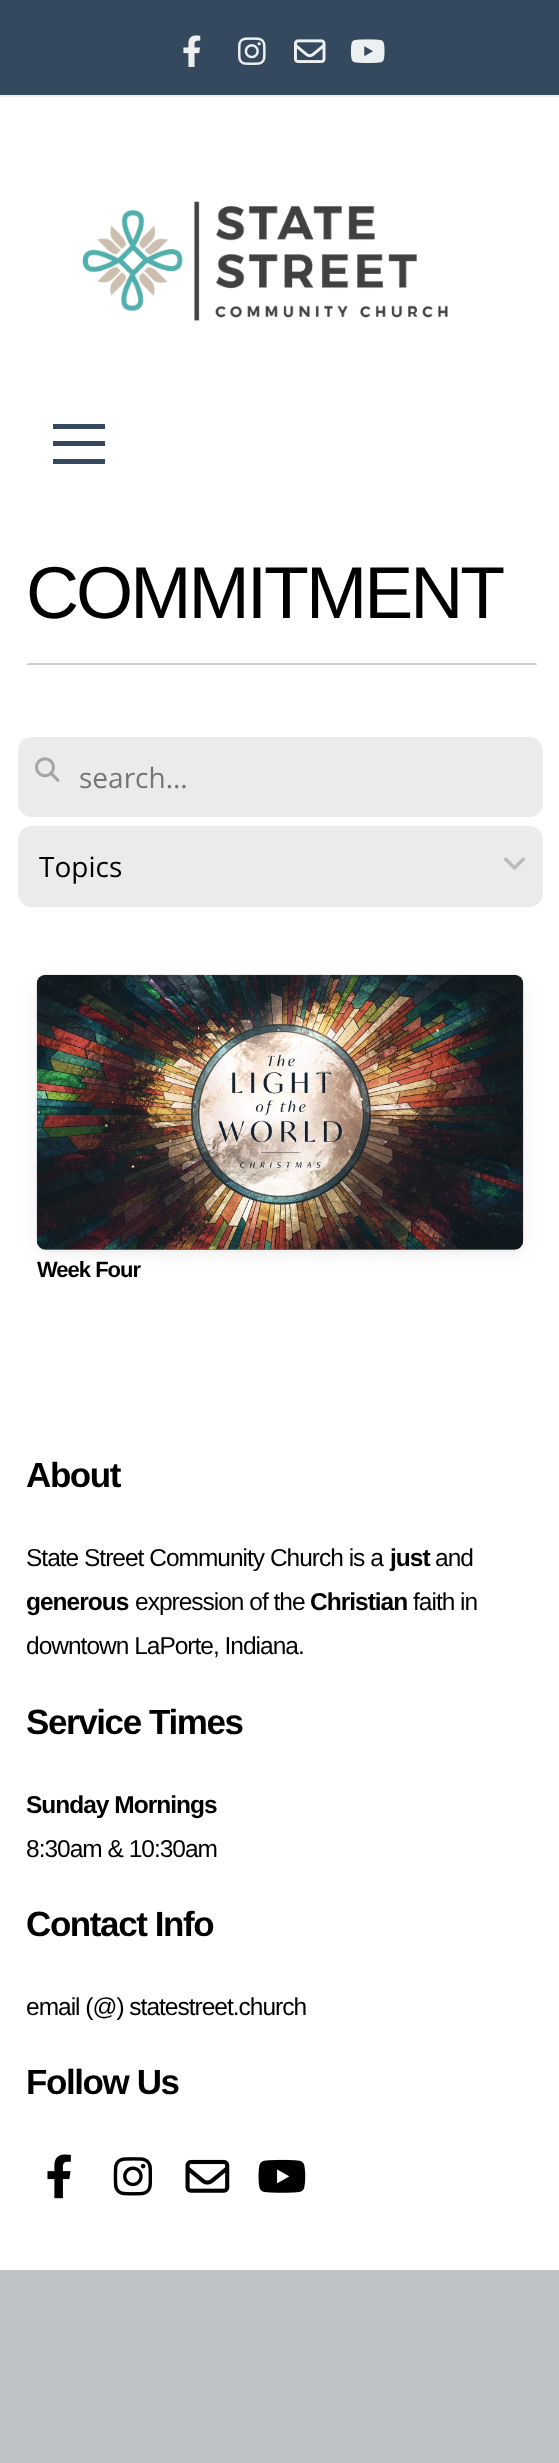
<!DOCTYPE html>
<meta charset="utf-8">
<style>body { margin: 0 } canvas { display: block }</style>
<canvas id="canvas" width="559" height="2463"></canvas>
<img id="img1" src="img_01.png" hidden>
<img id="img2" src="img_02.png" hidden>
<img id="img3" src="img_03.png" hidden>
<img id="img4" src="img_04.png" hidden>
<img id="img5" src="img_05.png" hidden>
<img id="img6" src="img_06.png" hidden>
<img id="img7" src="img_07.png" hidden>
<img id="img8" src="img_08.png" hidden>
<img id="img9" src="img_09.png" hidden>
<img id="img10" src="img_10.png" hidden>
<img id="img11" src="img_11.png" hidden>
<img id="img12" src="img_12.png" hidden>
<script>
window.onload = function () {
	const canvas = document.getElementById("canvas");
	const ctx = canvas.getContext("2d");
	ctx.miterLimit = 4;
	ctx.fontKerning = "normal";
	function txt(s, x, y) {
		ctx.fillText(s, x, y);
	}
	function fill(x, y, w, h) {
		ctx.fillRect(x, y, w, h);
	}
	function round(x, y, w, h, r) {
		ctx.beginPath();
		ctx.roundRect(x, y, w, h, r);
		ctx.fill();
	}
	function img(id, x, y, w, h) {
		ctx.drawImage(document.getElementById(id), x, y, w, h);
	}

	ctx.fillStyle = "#BDC3C7";
	fill(0, 0, 559, 2463);
	ctx.fillStyle = "#34495E";
	fill(0, 0, 559, 95);
	ctx.fillStyle = "#ECF0F1";
	fill(0, 95, 559, 2);
	img("img1", 183, 35, 18, 32);
	img("img2", 238, 37, 28, 28);
	img("img3", 294, 39, 32, 24);
	img("img4", 350, 39, 35, 24);
	ctx.fillStyle = "#FFFFFF";
	fill(0, 97, 559, 2173);
	img("img5", 82, 201, 366, 120);
	ctx.fillStyle = "#34495E";
	fill(53, 424, 52, 5);
	fill(53, 441, 52, 5);
	fill(53, 459, 52, 5);
	ctx.fillStyle = "#CCCCCC";
	ctx.beginPath();
	ctx.moveTo(537, 665);
	ctx.lineTo(26, 665);
	ctx.lineTo(28, 663);
	ctx.lineTo(536, 663);
	ctx.closePath();
	ctx.fill();
	ctx.fillStyle = "#EBEBEB";
	round(18, 737, 525, 80, 14);
	img("img6", 35, 757, 25, 25);
	round(18, 826, 525, 81, 14);
	img("img7", 504, 857, 21, 13);
	ctx.fillStyle = "rgba(0, 0, 0, 0.04)";
	ctx.filter = "blur(2px)";
	ctx.beginPath();
	ctx.roundRect(37, 977, 486, 274, 9);
	ctx.fill();
	ctx.filter = "none";
	ctx.fillStyle = "rgba(0, 0, 0, 0.06)";
	ctx.filter = "blur(9px)";
	ctx.beginPath();
	ctx.roundRect(37, 980, 486, 275, 9);
	ctx.fill();
	ctx.filter = "none";
	ctx.fillStyle = "#837468";
	round(37, 975, 486, 275, 9);
	img("img8", 36, 974, 488, 276);
	img("img9", 47, 2154, 24, 45);
	img("img10", 113, 2157, 40, 39);
	img("img11", 185, 2159, 45, 34);
	img("img12", 258, 2159, 48, 34);
	ctx.letterSpacing = "-3px";
	ctx.font = "73.5px Liberation Sans";
	ctx.fillStyle = "#000000";
	txt("COMMITMENT", 26, 618);
	ctx.letterSpacing = "0px";
	ctx.font = "28px Open Sans";
	ctx.fillStyle = "#767676";
	txt("search...", 79, 788);
	ctx.fillStyle = "#000000";
	txt("Topics", 39, 877);
	ctx.letterSpacing = "-1px";
	ctx.font = "bold 22px Liberation Sans";
	txt("Week Four", 37, 1277);
	ctx.letterSpacing = "-1.4px";
	ctx.font = "bold 35px Liberation Sans";
	txt("About", 26, 1487);
	ctx.letterSpacing = "-1px";
	ctx.font = "24.5px Liberation Sans";
	txt("State Street Community Church is a", 26, 1566);
	ctx.font = "bold 24.5px Liberation Sans";
	txt("just", 390, 1566);
	ctx.font = "24.5px Liberation Sans";
	txt("and", 435, 1566);
	ctx.font = "bold 24.5px Liberation Sans";
	txt("generous", 26, 1610);
	ctx.font = "24.5px Liberation Sans";
	txt("expression of the", 135, 1610);
	ctx.font = "bold 24.5px Liberation Sans";
	txt("Christian", 310, 1610);
	ctx.font = "24.5px Liberation Sans";
	txt("faith in", 413, 1610);
	txt("downtown LaPorte, Indiana.", 26, 1654);
	ctx.letterSpacing = "-1.4px";
	ctx.font = "bold 35px Liberation Sans";
	txt("Service Times", 26, 1734);
	ctx.letterSpacing = "-1px";
	ctx.font = "bold 24.5px Liberation Sans";
	txt("Sunday Mornings", 26, 1813);
	ctx.font = "24.5px Liberation Sans";
	txt("8:30am & 10:30am", 26, 1857);
	ctx.letterSpacing = "-1.4px";
	ctx.font = "bold 35px Liberation Sans";
	txt("Contact Info", 26, 1936);
	ctx.letterSpacing = "-1px";
	ctx.font = "24.5px Liberation Sans";
	txt("email (@) statestreet.church", 26, 2015);
	ctx.letterSpacing = "-1.4px";
	ctx.font = "bold 35px Liberation Sans";
	txt("Follow Us", 26, 2094);
};
</script>
